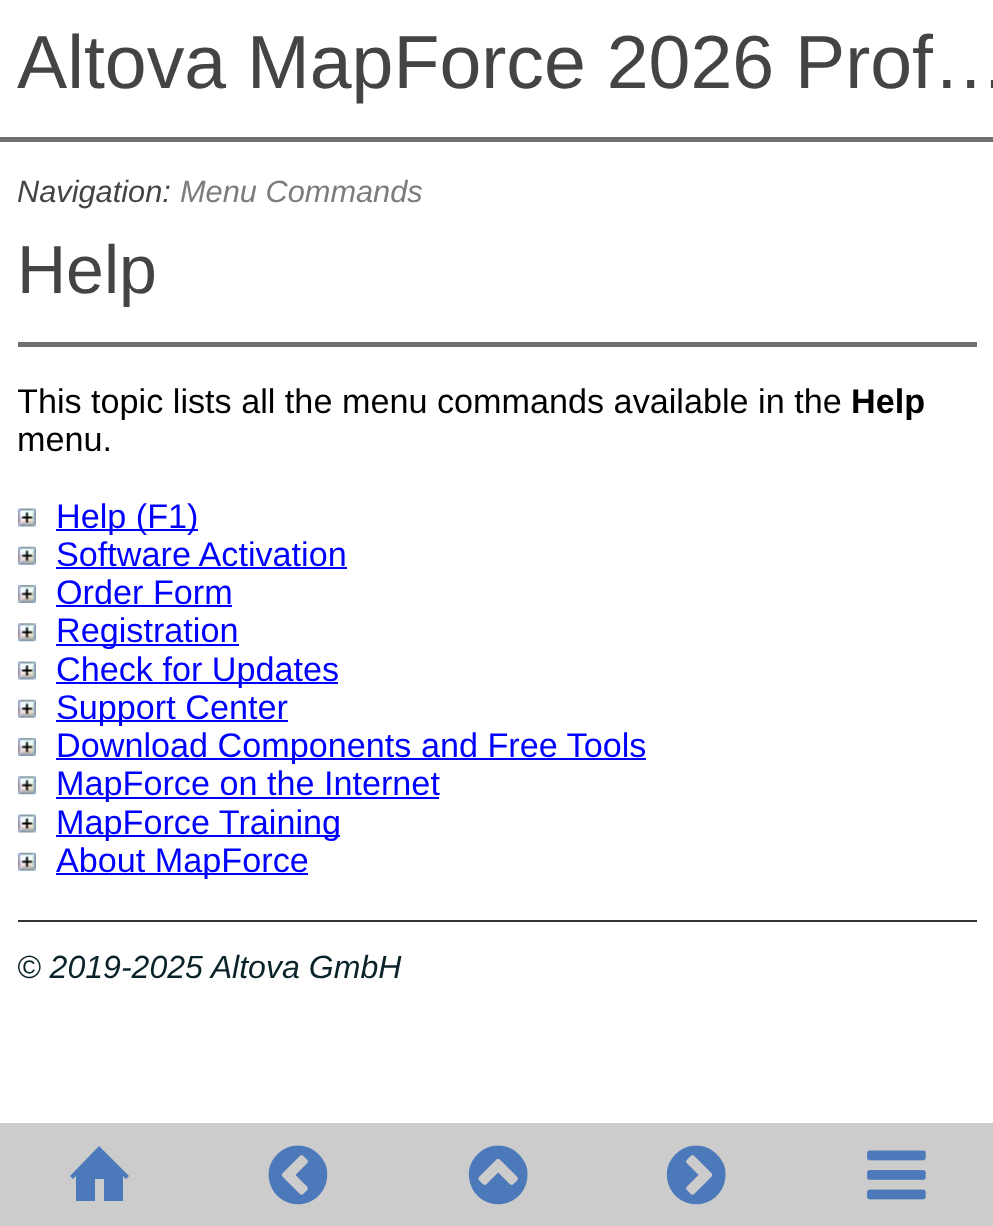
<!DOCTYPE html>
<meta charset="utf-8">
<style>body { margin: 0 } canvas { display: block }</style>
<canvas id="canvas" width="993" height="1226"></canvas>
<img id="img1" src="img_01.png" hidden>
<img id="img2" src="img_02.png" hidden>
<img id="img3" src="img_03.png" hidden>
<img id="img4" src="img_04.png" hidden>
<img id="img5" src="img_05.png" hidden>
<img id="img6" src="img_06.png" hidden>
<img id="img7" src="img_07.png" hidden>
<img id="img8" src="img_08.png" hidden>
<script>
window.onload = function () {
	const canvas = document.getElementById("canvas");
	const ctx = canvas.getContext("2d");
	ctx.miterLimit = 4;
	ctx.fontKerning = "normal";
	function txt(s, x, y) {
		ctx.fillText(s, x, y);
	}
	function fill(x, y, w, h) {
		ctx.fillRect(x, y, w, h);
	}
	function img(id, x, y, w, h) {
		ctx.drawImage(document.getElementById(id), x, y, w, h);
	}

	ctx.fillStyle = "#FFFFFF";
	fill(0, 0, 993, 1226);
	ctx.fillStyle = "#707070";
	fill(0, 137, 993, 5);
	fill(18, 342, 959, 5);
	img("img1", 18, 508, 18, 19);
	ctx.fillStyle = "#0000FF";
	fill(56, 529, 142, 2);
	img("img2", 18, 546, 18, 19);
	fill(56, 567, 291, 2);
	img("img3", 18, 585, 18, 18);
	fill(56, 605, 176, 2);
	img("img4", 18, 623, 18, 19);
	fill(56, 644, 183, 2);
	img("img1", 18, 661, 18, 19);
	fill(56, 682, 282, 2);
	img("img2", 18, 699, 18, 19);
	fill(56, 720, 232, 2);
	img("img3", 18, 738, 18, 18);
	fill(56, 758, 590, 2);
	img("img4", 18, 776, 18, 19);
	fill(56, 797, 383, 2);
	img("img1", 18, 814, 18, 19);
	fill(56, 835, 284, 2);
	img("img2", 18, 852, 18, 19);
	fill(56, 873, 252, 2);
	ctx.fillStyle = "#333333";
	fill(18, 920, 959, 2);
	ctx.fillStyle = "#CCCCCC";
	fill(0, 1123, 993, 103);
	ctx.fillStyle = "#4C79B9";
	ctx.beginPath();
	ctx.moveTo(99, 1146);
	ctx.lineTo(70, 1176);
	ctx.lineTo(73, 1179);
	ctx.lineTo(76, 1176);
	ctx.lineTo(76, 1201);
	ctx.lineTo(95, 1201);
	ctx.lineTo(95, 1179);
	ctx.lineTo(104, 1179);
	ctx.lineTo(104, 1201);
	ctx.lineTo(123, 1201);
	ctx.lineTo(123, 1176);
	ctx.lineTo(126, 1179);
	ctx.lineTo(129, 1176);
	ctx.lineTo(101, 1148);
	ctx.closePath();
	ctx.fill();
	img("img5", 268, 1145, 60, 60);
	img("img6", 468, 1145, 60, 60);
	img("img7", 666, 1145, 60, 60);
	img("img8", 867, 1150, 59, 50);
	ctx.font = "75.25px Liberation Sans";
	ctx.fillStyle = "#444444";
	txt("Altova MapForce 2026 Prof…", 17, 88);
	ctx.font = "italic 30.75px Liberation Sans";
	txt("Navigation:", 17, 202);
	ctx.fillStyle = "#7C7C7C";
	txt("Menu Commands", 180, 202);
	ctx.font = "68px Liberation Sans";
	ctx.fillStyle = "#444444";
	txt("Help", 17, 293);
	ctx.save();
	ctx.beginPath();
	ctx.rect(18, 347, 959, 679);
	ctx.clip();
	ctx.font = "34.2px Liberation Sans";
	ctx.fillStyle = "#000000";
	txt("This topic lists all the menu commands available in the", 17, 413);
	ctx.restore();
	ctx.font = "bold 34.2px Liberation Sans";
	ctx.fillStyle = "#000000";
	txt("Help", 851, 413);
	ctx.font = "34.2px Liberation Sans";
	txt("menu.", 17, 451);
	ctx.fillStyle = "#0000FF";
	txt("Help (F1)", 56, 528);
	txt("Software Activation", 56, 566);
	txt("Order Form", 56, 604);
	txt("Registration", 56, 642);
	txt("Check for Updates", 56, 681);
	txt("Support Center", 56, 719);
	txt("Download Components and Free Tools", 56, 757);
	txt("MapForce on the Internet", 56, 795);
	txt("MapForce Training", 56, 834);
	txt("About MapForce", 56, 872);
	ctx.font = "italic 32.1px Liberation Sans";
	ctx.fillStyle = "#0A2229";
	txt("© 2019-2025 Altova GmbH", 17, 978);
};
</script>
